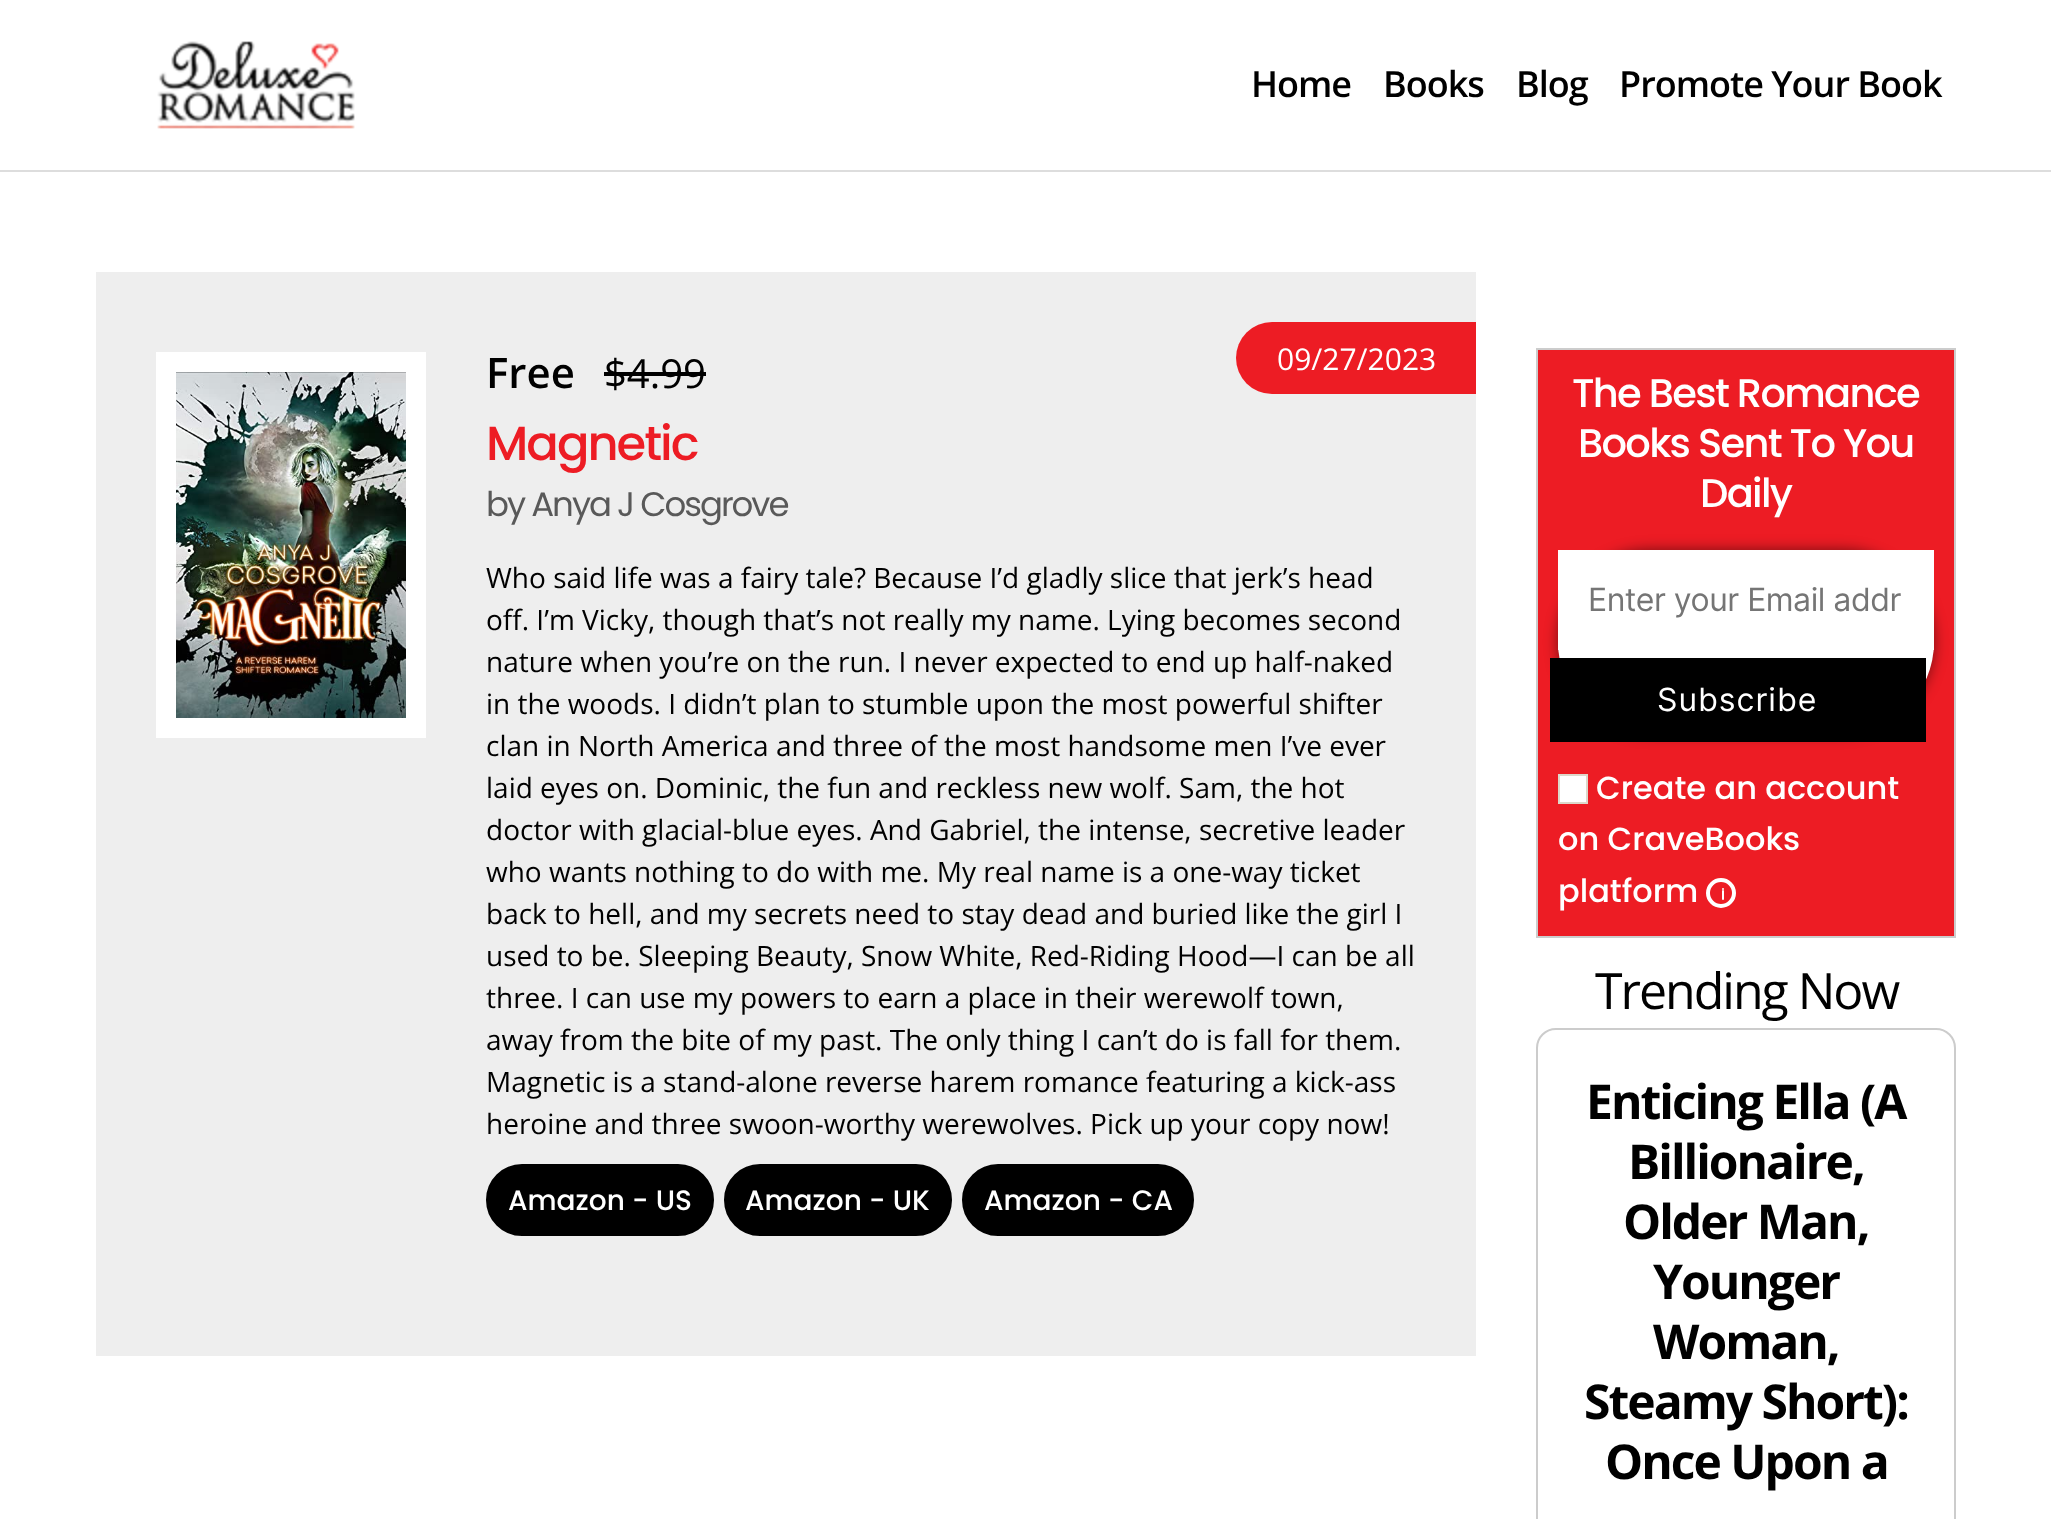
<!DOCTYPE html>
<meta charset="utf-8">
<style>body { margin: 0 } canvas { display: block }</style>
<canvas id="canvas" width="2051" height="1519"></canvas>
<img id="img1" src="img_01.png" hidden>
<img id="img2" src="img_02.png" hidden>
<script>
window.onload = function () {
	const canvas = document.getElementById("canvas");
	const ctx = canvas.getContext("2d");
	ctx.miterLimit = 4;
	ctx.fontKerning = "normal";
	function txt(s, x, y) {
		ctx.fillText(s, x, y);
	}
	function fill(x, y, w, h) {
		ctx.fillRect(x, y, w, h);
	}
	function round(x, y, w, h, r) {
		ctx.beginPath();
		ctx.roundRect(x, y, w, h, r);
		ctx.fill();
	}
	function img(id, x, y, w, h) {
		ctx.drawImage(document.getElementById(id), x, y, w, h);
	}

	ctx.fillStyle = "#FFFFFF";
	fill(0, 0, 2051, 1519);
	ctx.fillStyle = "#DDDDDD";
	fill(0, 170, 2051, 2);
	img("img1", 157, 41, 198, 88);
	ctx.fillStyle = "#EEEEEE";
	fill(96, 272, 1380, 1084);
	ctx.strokeStyle = "#FFFFFF";
	ctx.lineWidth = 20;
	ctx.strokeRect(166, 362, 250, 366);
	img("img2", 176, 372, 230, 346);
	ctx.fillStyle = "#000000";
	fill(604, 372, 102, 4);
	ctx.fillStyle = "#ED1C24";
	ctx.beginPath();
	ctx.roundRect(1236, 322, 240, 72, [36, 0, 0, 36]);
	ctx.fill();
	ctx.fillStyle = "#000000";
	ctx.beginPath();
	ctx.roundRect(487, 1165, 226, 70, 35);
	ctx.fill();
	ctx.strokeStyle = "#000000";
	ctx.lineWidth = 2;
	ctx.stroke();
	ctx.beginPath();
	ctx.roundRect(725, 1165, 226, 70, 35);
	ctx.fill();
	ctx.stroke();
	ctx.beginPath();
	ctx.roundRect(963, 1165, 230, 70, 35);
	ctx.fill();
	ctx.stroke();
	ctx.fillStyle = "#ED1C24";
	ctx.beginPath();
	ctx.rect(1537, 349, 418, 588);
	ctx.fill();
	ctx.strokeStyle = "#CCCCCC";
	ctx.stroke();
	ctx.fillStyle = "rgba(0, 0, 0, 0.5)";
	ctx.filter = "blur(7px)";
	ctx.beginPath();
	ctx.roundRect(1558, 550, 376, 184, 92);
	ctx.fill();
	ctx.filter = "none";
	ctx.fillStyle = "#FFFFFF";
	round(1558, 550, 376, 184, 92);
	fill(1558, 550, 376, 100);
	ctx.fillStyle = "#000000";
	fill(1550, 658, 376, 84);
	ctx.fillStyle = "#FFFFFF";
	ctx.beginPath();
	ctx.rect(1559, 775, 28, 28);
	ctx.fill();
	ctx.strokeStyle = "#DCD7CA";
	ctx.stroke();
	ctx.beginPath();
	ctx.arc(1721, 893, 13, 0, Math.PI * 2);
	ctx.strokeStyle = "#FFFFFF";
	ctx.lineWidth = 4;
	ctx.stroke();
	ctx.beginPath();
	ctx.arc(1723, 889, 1, 0, Math.PI * 2);
	ctx.fill();
	round(1722, 890, 2, 10, 1);
	ctx.beginPath();
	ctx.roundRect(1537, 1029, 418, 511, 19);
	ctx.strokeStyle = "#CCCCCC";
	ctx.lineWidth = 2;
	ctx.stroke();
	ctx.letterSpacing = "-1px";
	ctx.font = "600 36px Open Sans";
	ctx.fillStyle = "#000000";
	txt("Home", 1251, 97);
	txt("Books", 1383, 97);
	txt("Blog", 1516, 97);
	txt("Promote Your Book", 1619, 97);
	ctx.letterSpacing = "0px";
	ctx.font = "600 42px Open Sans";
	txt("Free", 486, 388);
	ctx.font = "40px Open Sans";
	txt("$4.99", 604, 388);
	ctx.font = "30px Open Sans";
	ctx.fillStyle = "#FFFFFF";
	txt("09/27/2023", 1277, 370);
	ctx.letterSpacing = "-2px";
	ctx.font = "500 48px Poppins";
	ctx.fillStyle = "#ED1C24";
	txt("Magnetic", 486, 460);
	ctx.font = "34px Poppins";
	ctx.fillStyle = "#595959";
	txt("by Anya J Cosgrove", 486, 516);
	ctx.letterSpacing = "0px";
	ctx.font = "28px Open Sans";
	ctx.fillStyle = "#000000";
	txt("Who said life was a fairy tale? Because I’d gladly slice that jerk’s head", 486, 588);
	txt("off. I’m Vicky, though that’s not really my name. Lying becomes second", 486, 630);
	txt("nature when you’re on the run. I never expected to end up half-naked", 486, 672);
	txt("in the woods. I didn’t plan to stumble upon the most powerful shifter", 486, 714);
	txt("clan in North America and three of the most handsome men I’ve ever", 486, 756);
	txt("laid eyes on. Dominic, the fun and reckless new wolf. Sam, the hot", 486, 798);
	txt("doctor with glacial-blue eyes. And Gabriel, the intense, secretive leader", 486, 840);
	txt("who wants nothing to do with me. My real name is a one-way ticket", 486, 882);
	txt("back to hell, and my secrets need to stay dead and buried like the girl I", 486, 924);
	txt("used to be. Sleeping Beauty, Snow White, Red-Riding Hood—I can be all", 486, 966);
	txt("three. I can use my powers to earn a place in their werewolf town,", 486, 1008);
	txt("away from the bite of my past. The only thing I can’t do is fall for them.", 486, 1050);
	txt("Magnetic is a stand-alone reverse harem romance featuring a kick-ass", 486, 1092);
	txt("heroine and three swoon-worthy werewolves. Pick up your copy now!", 486, 1134);
	ctx.font = "500 28px Poppins";
	ctx.fillStyle = "#FFFFFF";
	txt("Amazon - US", 508, 1210);
	txt("Amazon - UK", 745, 1210);
	txt("Amazon - CA", 984, 1210);
	ctx.letterSpacing = "-1.7px";
	ctx.font = "500 40px Poppins";
	txt("The Best Romance", 1572, 407);
	txt("Books Sent To You", 1578, 457);
	txt("Daily", 1700, 507);
	ctx.letterSpacing = "-0.5px";
	ctx.font = "32px Inter";
	ctx.fillStyle = "#757575";
	txt("Enter your Email addr", 1588, 611);
	ctx.letterSpacing = "1px";
	ctx.fillStyle = "#FFFFFF";
	txt("Subscribe", 1657, 711);
	ctx.letterSpacing = "0px";
	ctx.font = "500 32px Poppins";
	txt("Create an account", 1596, 799);
	txt("on CraveBooks", 1558, 850);
	txt("platform", 1558, 902);
	ctx.letterSpacing = "-2px";
	ctx.font = "50px Open Sans";
	ctx.fillStyle = "#000000";
	txt("Trending Now", 1595, 1009);
	ctx.font = "bold 48px Open Sans";
	txt("Enticing Ella (A", 1586, 1119);
	txt("Billionaire,", 1628, 1179);
	txt("Older Man,", 1623, 1239);
	txt("Younger", 1653, 1299);
	txt("Woman,", 1653, 1359);
	txt("Steamy Short):", 1584, 1419);
	txt("Once Upon a", 1605, 1479);
};
</script>
